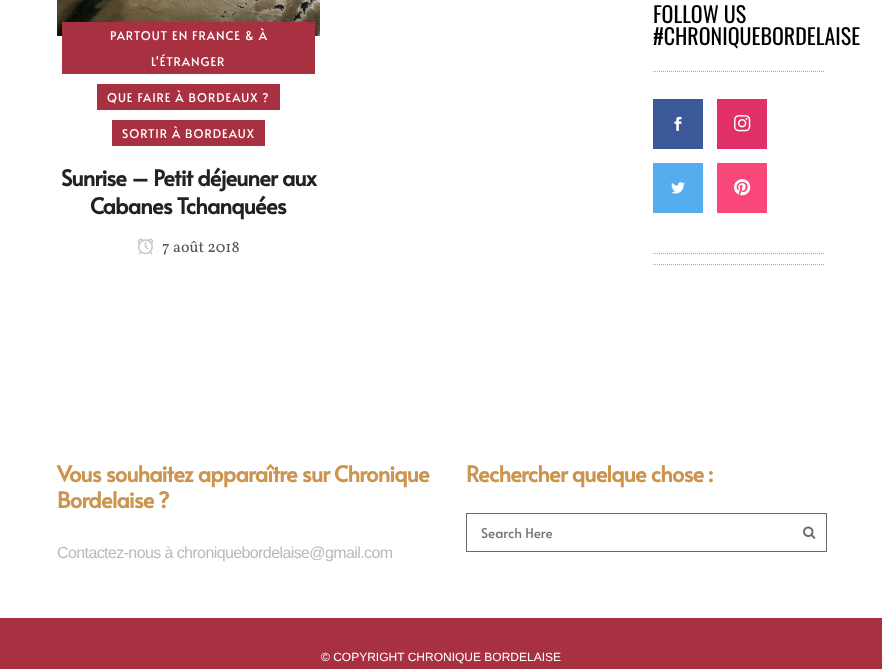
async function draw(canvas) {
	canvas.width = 882;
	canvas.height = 669;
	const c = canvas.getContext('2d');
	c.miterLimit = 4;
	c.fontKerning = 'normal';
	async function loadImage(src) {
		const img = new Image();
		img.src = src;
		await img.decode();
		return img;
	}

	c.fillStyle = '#fff';
	c.fillRect(0, 0, 882, 669);
	c.drawImage(await loadImage('img1.png'), 57, 0, 263, 36);
	c.fillStyle = '#a83141';
	c.fillRect(62, 22, 253, 52);
	c.letterSpacing = '1px';
	c.font = '12px Alata';
	c.fillStyle = '#fff';
	c.fillText('PARTOUT EN FRANCE & À', 110, 40);
	c.fillText('L\'ÉTRANGER', 151, 66);
	c.fillStyle = '#a83141';
	c.fillRect(97, 84, 183, 26);
	c.fillStyle = '#fff';
	c.fillText('QUE FAIRE À BORDEAUX ?', 107, 102);
	c.fillStyle = '#a83141';
	c.fillRect(112, 120, 153, 26);
	c.fillStyle = '#fff';
	c.fillText('SORTIR À BORDEAUX', 122, 138);
	c.letterSpacing = '-0.7px';
	c.font = 'bold 22px Alata';
	c.fillStyle = '#222';
	c.fillText('Sunrise – Petit déjeuner aux', 61, 186);
	c.fillText('Cabanes Tchanquées', 90, 214);
	c.drawImage(await loadImage('img2.png'), 137, 238, 17, 17);
	c.letterSpacing = '0px';
	c.font = '16px Vollkorn';
	c.fillStyle = '#545454';
	c.fillText('7 août 2018', 162, 252);
	c.font = '22px Oswald';
	c.fillStyle = '#000';
	c.fillText('FOLLOW US', 653, 23);
	c.fillText('#CHRONIQUEBORDELAISE', 653, 45);
	c.beginPath();
	c.moveTo(653, 71.5);
	c.lineTo(825, 71.5);
	c.strokeStyle = '#a9a9a9';
	c.setLineDash([1, 1]);
	c.stroke();
	c.fillStyle = '#3b5998';
	c.fillRect(653, 99, 50, 50);
	c.drawImage(await loadImage('img3.png'), 674, 116, 8, 15);
	c.fillStyle = '#e12f67';
	c.fillRect(717, 99, 50, 50);
	c.drawImage(await loadImage('img4.png'), 734, 115, 17, 17);
	c.fillStyle = '#55acee';
	c.fillRect(653, 163, 50, 50);
	c.drawImage(await loadImage('img5.png'), 671, 182, 14, 12);
	c.fillStyle = '#f94779';
	c.fillRect(717, 163, 50, 50);
	c.drawImage(await loadImage('img6.png'), 734, 179, 17, 17);
	c.beginPath();
	c.moveTo(653, 253.5);
	c.lineTo(825, 253.5);
	c.stroke();
	c.beginPath();
	c.moveTo(653, 264.5);
	c.lineTo(825, 264.5);
	c.stroke();
	c.letterSpacing = '-0.7px';
	c.font = 'bold 22px Alata';
	c.fillStyle = '#cc944c';
	c.fillText('Vous souhaitez apparaître sur Chronique', 57, 482);
	c.fillText('Bordelaise ?', 57, 508);
	c.letterSpacing = '-0.6px';
	c.font = '16px Liberation Sans';
	c.fillStyle = '#bababa';
	c.fillText('Contactez-nous à chroniquebordelaise@gmail.com', 57, 558);
	c.letterSpacing = '-0.7px';
	c.font = 'bold 22px Alata';
	c.fillStyle = '#cc944c';
	c.fillText('Rechercher quelque chose :', 466, 482);
	c.strokeStyle = '#6a6a6a';
	c.setLineDash([]);
	c.strokeRect(466.5, 513.5, 360, 38);
	c.letterSpacing = '0px';
	c.font = '13.5px Alata';
	c.fillStyle = '#757575';
	c.fillText('Search Here', 481, 538);
	c.drawImage(await loadImage('img7.png'), 803, 526, 13, 13);
	c.fillStyle = '#a83141';
	c.fillRect(0, 618, 882, 51);
	c.font = '12px Liberation Sans';
	c.fillStyle = '#fff';
	c.fillText('© COPYRIGHT CHRONIQUE BORDELAISE', 321, 661);
}

draw(document.querySelector('canvas'));
